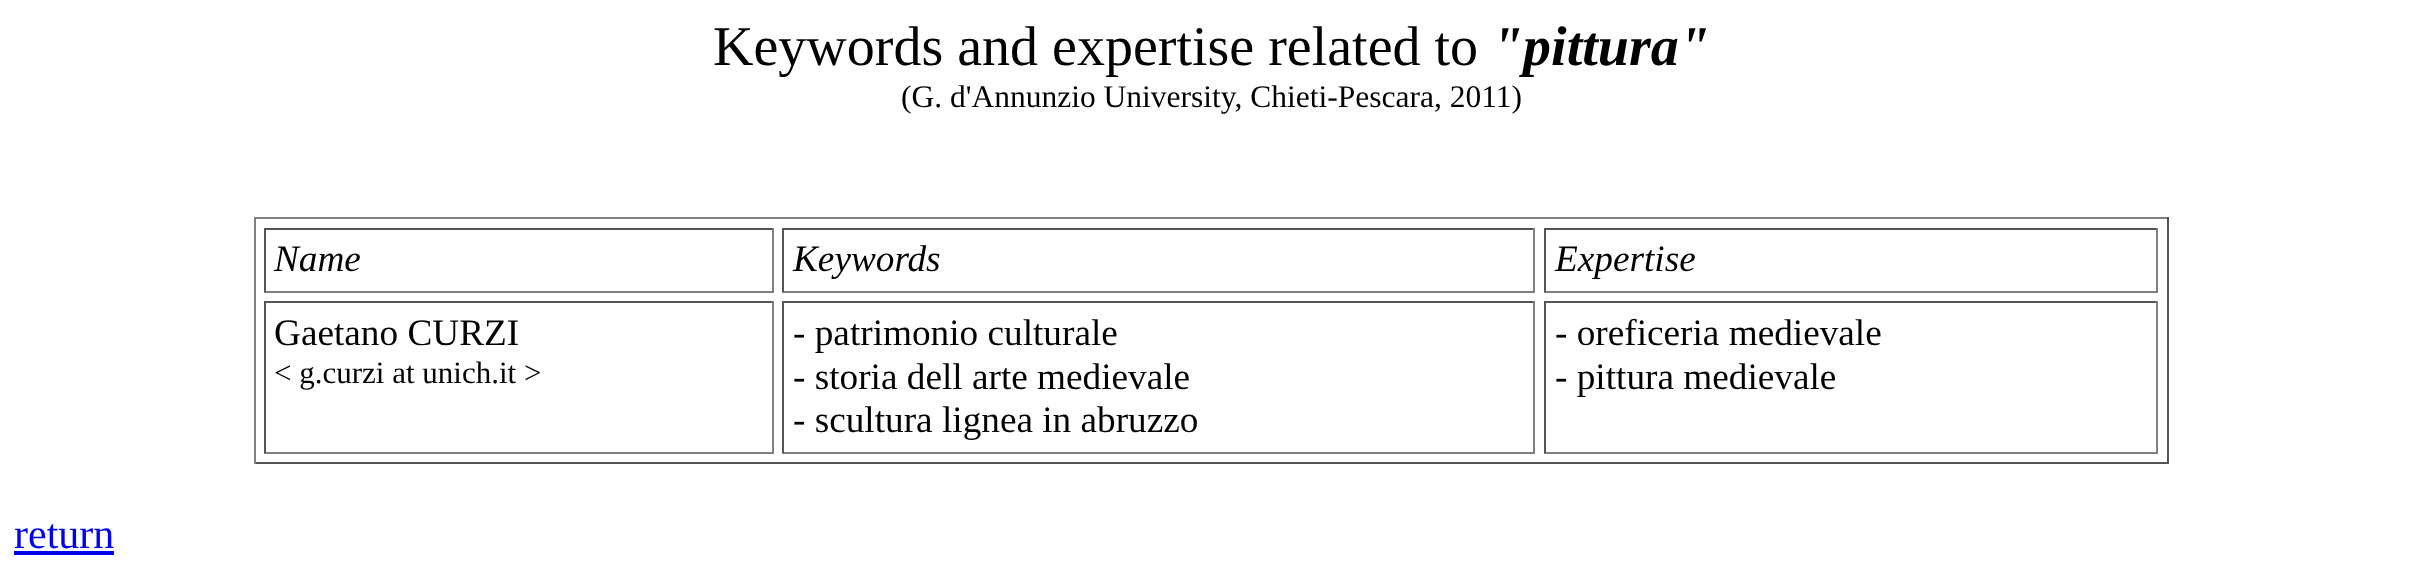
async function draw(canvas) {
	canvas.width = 2421;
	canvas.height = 571;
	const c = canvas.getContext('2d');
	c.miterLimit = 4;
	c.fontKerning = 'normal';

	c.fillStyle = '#fff';
	c.fillRect(0, 0, 2421, 571);
	c.font = '56px Liberation Serif';
	c.fillStyle = '#000';
	c.fillText('Keywords and expertise related to', 713, 65);
	c.font = 'italic bold 56px Liberation Serif';
	c.fillText('"pittura"', 1492, 65);
	c.font = '31.5px Liberation Serif';
	c.fillText('(G. d\'Annunzio University, Chieti-Pescara, 2011)', 901, 107);
	for (const [x, y, w, h, color] of [
		[254, 217, 1914, 2, '#808080'],
		[2167, 217, 2, 247, '#555'],
		[254, 462, 1914, 2, '#555'],
		[254, 217, 2, 247, '#808080'],
		[264, 228, 510, 2, '#555'],
		[772, 228, 2, 64, '#808080'],
		[264, 291, 510, 2, '#808080'],
		[264, 228, 2, 64, '#555'],
	]) {
		c.fillStyle = color;
		c.fillRect(x, y, w, h);
	}
	c.font = 'italic 37.25px Liberation Serif';
	c.fillStyle = '#000';
	c.fillText('Name', 274, 271);
	for (const [x, y, w, h, color] of [
		[782, 228, 753, 2, '#555'],
		[1533, 228, 2, 64, '#808080'],
		[782, 291, 753, 2, '#808080'],
		[782, 228, 2, 64, '#555'],
	]) {
		c.fillStyle = color;
		c.fillRect(x, y, w, h);
	}
	c.fillStyle = '#000';
	c.fillText('Keywords', 793, 271);
	for (const [x, y, w, h, color] of [
		[1544, 228, 614, 2, '#555'],
		[2156, 228, 2, 64, '#808080'],
		[1544, 291, 614, 2, '#808080'],
		[1544, 228, 2, 64, '#555'],
	]) {
		c.fillStyle = color;
		c.fillRect(x, y, w, h);
	}
	c.fillStyle = '#000';
	c.fillText('Expertise', 1555, 271);
	for (const [x, y, w, h, color] of [
		[264, 301, 510, 2, '#555'],
		[772, 301, 2, 152, '#808080'],
		[264, 452, 510, 2, '#808080'],
		[264, 301, 2, 152, '#555'],
	]) {
		c.fillStyle = color;
		c.fillRect(x, y, w, h);
	}
	c.font = '37.25px Liberation Serif';
	c.fillStyle = '#000';
	c.fillText('Gaetano CURZI', 274, 345);
	c.font = '31px Liberation Serif';
	c.fillText('< g.curzi at unich.it >', 274, 383);
	for (const [x, y, w, h, color] of [
		[782, 301, 753, 2, '#555'],
		[1533, 301, 2, 152, '#808080'],
		[782, 452, 753, 2, '#808080'],
		[782, 301, 2, 152, '#555'],
	]) {
		c.fillStyle = color;
		c.fillRect(x, y, w, h);
	}
	c.font = '37.25px Liberation Serif';
	c.fillStyle = '#000';
	for (const [text, x, y] of [
		['- patrimonio culturale', 793, 345],
		['- storia dell arte medievale', 793, 389],
		['- scultura lignea in abruzzo', 793, 432],
	]) {
		c.fillText(text, x, y);
	}
	for (const [x, y, w, h, color] of [
		[1544, 301, 614, 2, '#555'],
		[2156, 301, 2, 152, '#808080'],
		[1544, 452, 614, 2, '#808080'],
		[1544, 301, 2, 152, '#555'],
	]) {
		c.fillStyle = color;
		c.fillRect(x, y, w, h);
	}
	c.fillStyle = '#000';
	c.fillText('- oreficeria medievale', 1555, 345);
	c.fillText('- pittura medievale', 1555, 389);
	c.font = '42px Liberation Serif';
	c.fillStyle = '#00e';
	c.fillText('return', 14, 548);
	c.fillRect(14, 551, 100, 4);
}

draw(document.querySelector('canvas'));
